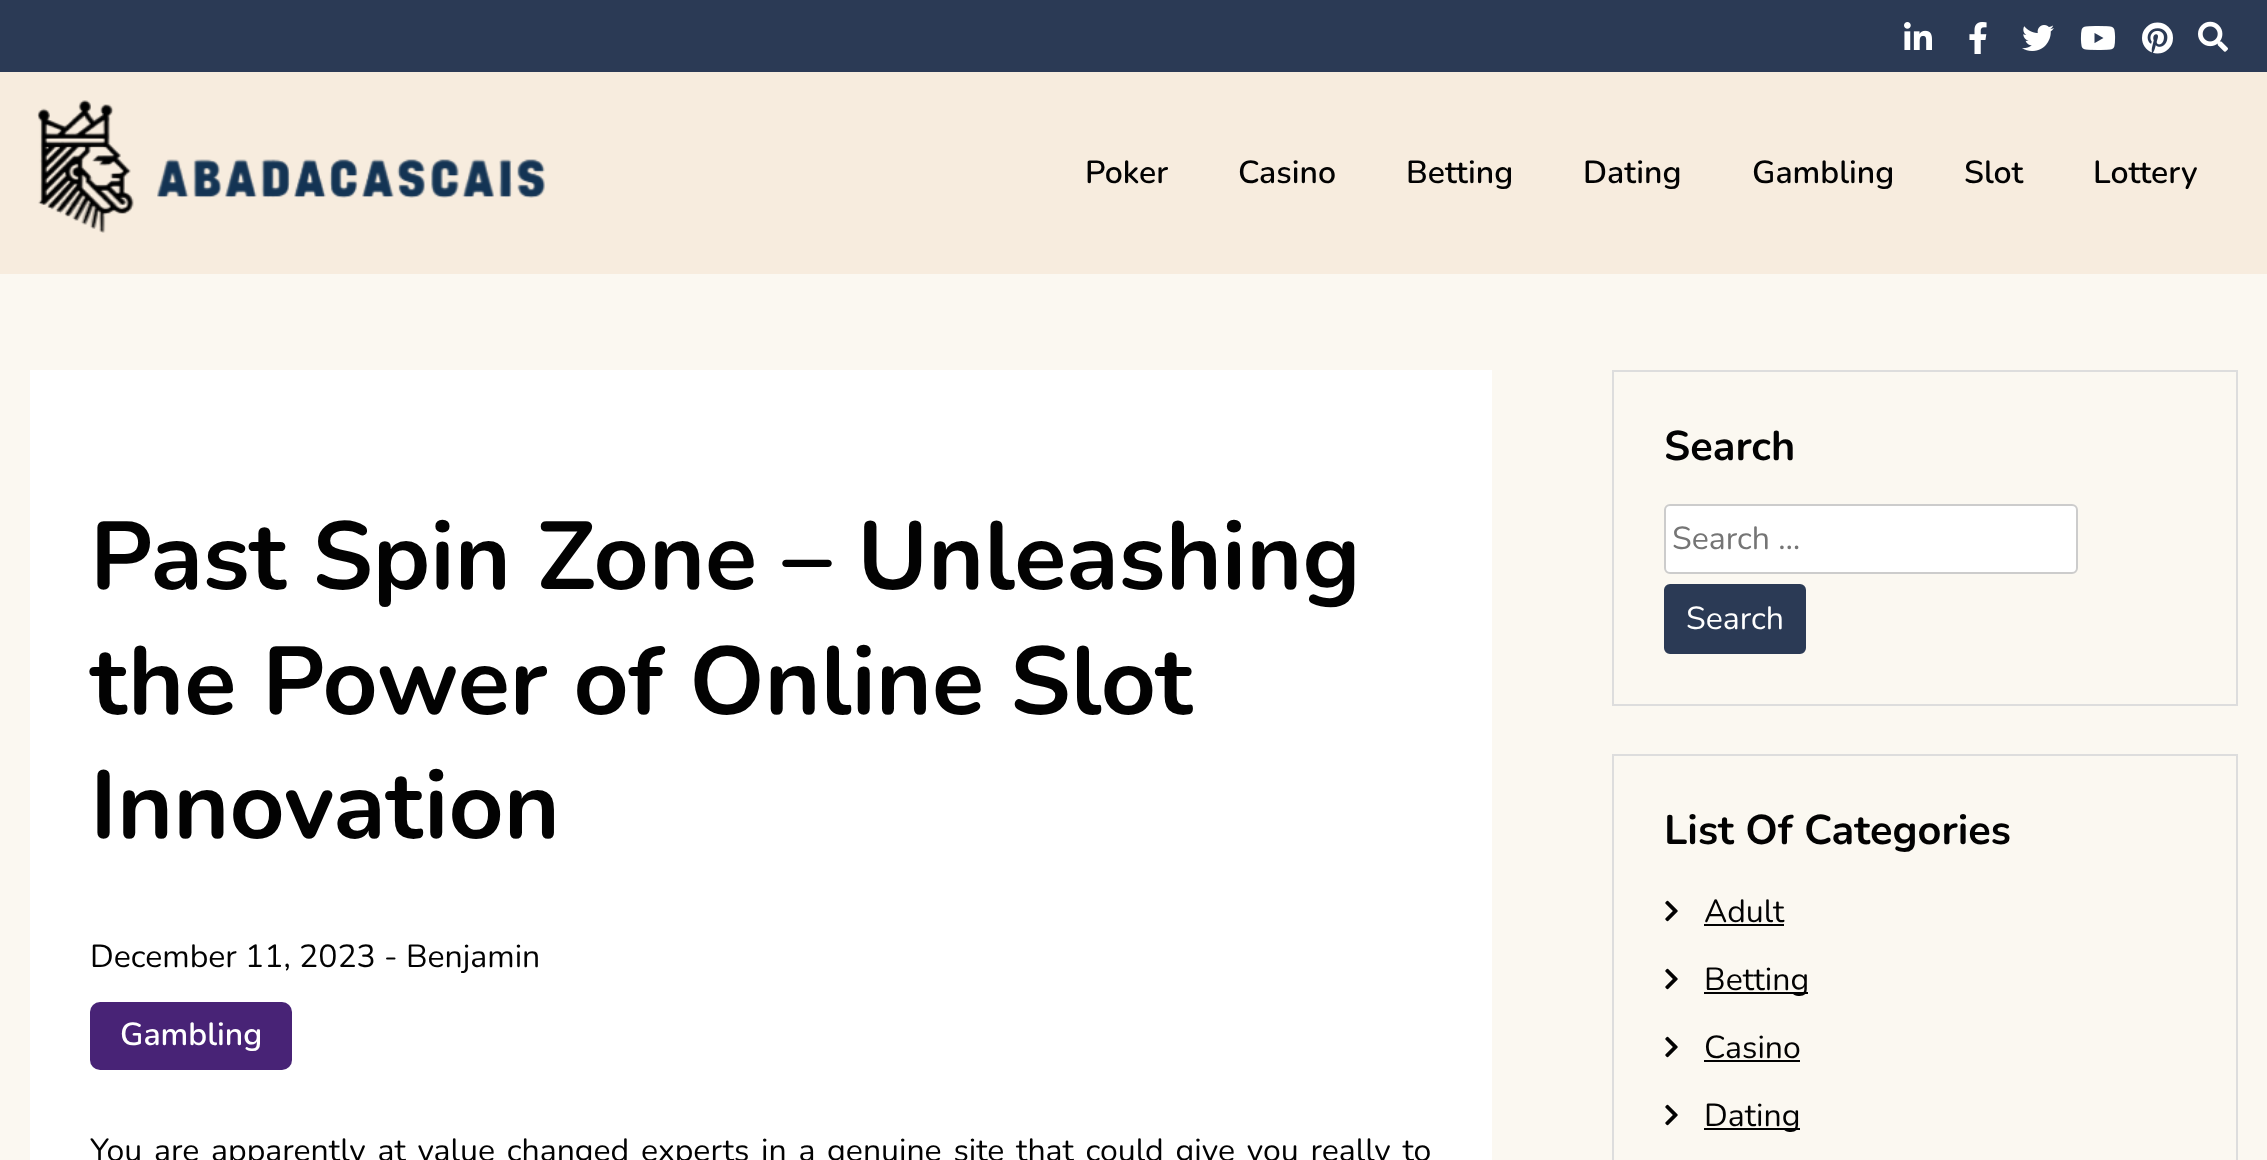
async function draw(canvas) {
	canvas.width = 2267;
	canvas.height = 1160;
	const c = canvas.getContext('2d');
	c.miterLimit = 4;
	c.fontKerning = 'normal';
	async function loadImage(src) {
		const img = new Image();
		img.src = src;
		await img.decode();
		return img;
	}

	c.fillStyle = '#fbf8f1';
	c.fillRect(0, 0, 2267, 1160);
	c.fillStyle = '#2b3a55';
	c.fillRect(0, 0, 2267, 72);
	c.drawImage(await loadImage('img1.png'), 1904, 22, 28, 28);
	c.drawImage(await loadImage('img2.png'), 1969, 22, 18, 32);
	c.drawImage(await loadImage('img3.png'), 2022, 25, 32, 26);
	c.drawImage(await loadImage('img4.png'), 2080, 26, 36, 24);
	c.drawImage(await loadImage('img5.png'), 2142, 22, 31, 32);
	c.drawImage(await loadImage('img6.png'), 2198, 21, 30, 31);
	c.fillStyle = '#f7ecde';
	c.fillRect(0, 72, 2267, 202);
	c.drawImage(await loadImage('img7.png'), 37, 100, 508, 133);
	c.font = '600 32px Nunito';
	c.fillStyle = '#020202';
	for (const [text, x, y] of [
		['Poker', 1085, 183],
		['Casino', 1238, 183],
		['Betting', 1406, 183],
		['Dating', 1583, 183],
		['Gambling', 1752, 183],
		['Slot', 1964, 183],
		['Lottery', 2093, 183],
	]) {
		c.fillText(text, x, y);
	}
	c.fillStyle = '#fff';
	c.fillRect(30, 370, 1462, 790);
	c.font = 'bold 96px Nunito';
	c.fillStyle = '#020202';
	for (const [text, x, y] of [
		['Past Spin Zone – Unleashing', 90, 589],
		['the Power of Online Slot', 90, 714],
		['Innovation', 90, 838],
	]) {
		c.fillText(text, x, y);
	}
	c.font = '32px Nunito';
	c.fillText('December 11, 2023 - Benjamin', 90, 967);
	c.fillStyle = '#482376';
	c.beginPath();
	c.roundRect(90, 1002, 202, 68, 10);
	c.fill();
	c.font = '600 32px Nunito';
	c.fillStyle = '#fff';
	c.fillText('Gambling', 120, 1045);
	c.wordSpacing = '3.5px';
	c.font = '32px Nunito';
	c.fillStyle = '#020202';
	c.fillText('You are apparently at value changed experts in a genuine site that could give you really to', 90, 1161);
	c.strokeStyle = '#ddd';
	c.lineWidth = 2;
	c.strokeRect(1613, 371, 624, 334);
	c.wordSpacing = '0px';
	c.font = 'bold 41.5px Nunito';
	c.fillText('Search', 1664, 460);
	c.fillStyle = '#fff';
	c.beginPath();
	c.roundRect(1665, 505, 412, 68, 5);
	c.fill();
	c.strokeStyle = '#ccc';
	c.stroke();
	c.font = '32px Nunito';
	c.fillStyle = '#757575';
	c.fillText('Search …', 1672, 549);
	c.fillStyle = '#2b3a55';
	c.beginPath();
	c.roundRect(1665, 585, 140, 68, 5);
	c.fill();
	c.strokeStyle = '#2b3a55';
	c.stroke();
	c.fillStyle = '#fff';
	c.fillText('Search', 1686, 629);
	c.strokeStyle = '#ddd';
	c.strokeRect(1613, 755, 624, 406);
	c.font = 'bold 41.5px Nunito';
	c.fillStyle = '#020202';
	c.fillText('List Of Categories', 1664, 844);
	c.drawImage(await loadImage('img8.png'), 1665, 900, 13, 22);
	c.font = '32px Nunito';
	c.fillText('Adult', 1704, 922);
	c.fillRect(1704, 924, 80, 2);
	c.drawImage(await loadImage('img8.png'), 1665, 968, 13, 22);
	c.fillRect(1704, 992, 104, 2);
	c.fillText('Betting', 1704, 990);
	c.drawImage(await loadImage('img8.png'), 1665, 1036, 13, 22);
	c.fillText('Casino', 1704, 1058);
	c.fillRect(1704, 1060, 96, 2);
	c.drawImage(await loadImage('img8.png'), 1665, 1104, 13, 22);
	c.fillRect(1704, 1128, 96, 2);
	c.fillText('Dating', 1704, 1126);
}

draw(document.querySelector('canvas'));
